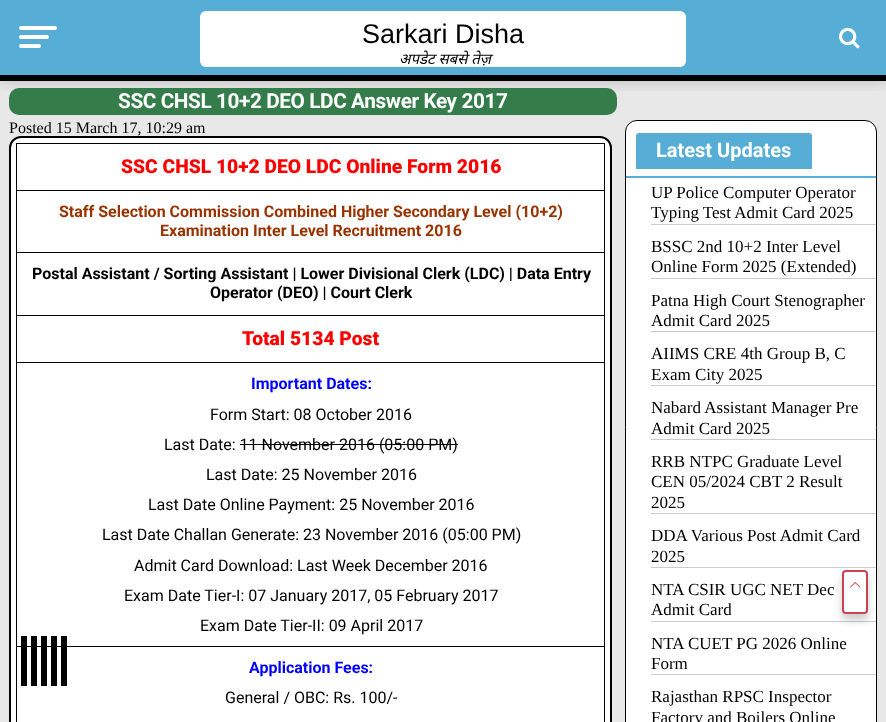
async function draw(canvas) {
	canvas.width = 886;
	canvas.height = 722;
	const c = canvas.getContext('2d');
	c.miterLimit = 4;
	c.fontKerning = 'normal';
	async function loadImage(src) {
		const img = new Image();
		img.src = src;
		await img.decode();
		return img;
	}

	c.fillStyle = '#e8e8e8';
	c.fillRect(0, 0, 886, 722);
	c.fillStyle = '#56add5';
	c.fillRect(0, 0, 886, 75);
	c.save();
	c.beginPath();
	c.rect(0, 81, 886, 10);
	c.clip();
	c.fillStyle = '#00000033';
	c.filter = 'blur(8px)';
	c.beginPath();
	c.rect(0, 0, 886, 81);
	c.fill();
	c.filter = 'none';
	c.restore();
	c.fillStyle = '#000';
	c.fillRect(0, 75, 886, 6);
	c.fillStyle = '#fff';
	c.beginPath();
	c.roundRect(19, 26, 38, 4, 2);
	c.fill();
	c.beginPath();
	c.roundRect(19, 35, 30, 4, 2);
	c.fill();
	c.beginPath();
	c.roundRect(19, 44, 22, 4, 2);
	c.fill();
	c.beginPath();
	c.roundRect(200, 11, 486, 56, 6);
	c.fill();
	c.font = '27px Liberation Sans';
	c.fillStyle = '#000';
	c.fillText('Sarkari Disha', 362, 43);
	c.font = 'italic 15px Noto Sans';
	c.fillText('अपडेट सबसे तेज़', 399, 64);
	c.drawImage(await loadImage('img1.png'), 839, 27, 21, 22);
	c.fillStyle = '#347c4a';
	c.beginPath();
	c.roundRect(9, 88, 608, 27, 10);
	c.fill();
	c.letterSpacing = '-0.4px';
	c.font = 'bold 20.75px Roboto';
	c.fillStyle = '#fff';
	c.fillText('SSC CHSL 10+2 DEO LDC Answer Key 2017', 118, 108);
	c.letterSpacing = '0px';
	c.font = '16px Liberation Serif';
	c.fillStyle = '#000';
	c.fillText('Posted 15 March 17, 10:29 am', 9, 133);
	c.fillStyle = '#fff';
	c.beginPath();
	c.roundRect(10, 137, 601, 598, 11);
	c.fill();
	c.strokeStyle = '#000';
	c.lineWidth = 2;
	c.stroke();
	for (const [x, y, w, h, color] of [
		[16, 143, 589, 1, '#000'],
		[604, 143, 1, 579, '#000'],
		[16, 143, 1, 579, '#000'],
	]) {
		c.fillStyle = color;
		c.fillRect(x, y, w, h);
	}
	c.font = '900 19.25px Roboto';
	c.fillStyle = '#f00';
	c.fillText('SSC CHSL 10+2 DEO LDC Online Form 2016', 121, 173);
	c.fillStyle = '#000';
	c.fillRect(16, 190, 589, 1);
	c.font = 'bold 16px Roboto';
	c.fillStyle = '#930';
	c.fillText('Staff Selection Commission Combined Higher Secondary Level (10+2)', 59, 217);
	c.fillText('Examination Inter Level Recruitment 2016', 160, 236);
	c.fillStyle = '#000';
	c.fillRect(16, 252, 589, 1);
	c.fillText('Postal Assistant / Sorting Assistant | Lower Divisional Clerk (LDC) | Data Entry', 32, 279);
	c.fillText('Operator (DEO) | Court Clerk', 210, 298);
	c.fillRect(16, 315, 589, 1);
	c.font = '900 19.25px Roboto';
	c.fillStyle = '#f00';
	c.fillText('Total 5134 Post', 242, 345);
	c.fillStyle = '#000';
	c.fillRect(16, 362, 589, 1);
	c.font = 'bold 16px Roboto';
	c.fillStyle = '#00f';
	c.fillText('Important Dates:', 251, 389);
	c.font = '16px Roboto';
	c.fillStyle = '#000';
	c.fillText('Form Start: 08 October 2016', 210, 420);
	c.fillText('Last Date: 11 November 2016 (05:00 PM)', 164, 450);
	c.fillRect(240, 444, 218, 1);
	for (const [text, x, y] of [
		['Last Date: 25 November 2016', 206, 480],
		['Last Date Online Payment: 25 November 2016', 148, 510],
		['Last Date Challan Generate: 23 November 2016 (05:00 PM)', 102, 540],
		['Admit Card Download: Last Week December 2016', 134, 571],
		['Exam Date Tier-I: 07 January 2017, 05 February 2017', 124, 601],
		['Exam Date Tier-II: 09 April 2017', 200, 631],
	]) {
		c.fillText(text, x, y);
	}
	c.fillRect(16, 646, 589, 1);
	c.font = 'bold 16px Roboto';
	c.fillStyle = '#00f';
	c.fillText('Application Fees:', 249, 673);
	c.font = '16px Roboto';
	c.fillStyle = '#000';
	c.fillText('General / OBC: Rs. 100/-', 225, 703);
	c.fillStyle = '#fff';
	c.beginPath();
	c.roundRect(625.5, 120.5, 251, 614, 11.5);
	c.fill();
	c.lineWidth = 1;
	c.stroke();
	c.fillStyle = '#56add5';
	c.fillRect(626, 176, 250, 2);
	c.beginPath();
	c.roundRect(636, 133, 176, 36, [3, 3, 0, 0]);
	c.fill();
	c.font = 'bold 20px Roboto';
	c.fillStyle = '#fff';
	c.fillText('Latest Updates', 656, 157);
	c.fillStyle = '#ccc';
	c.fillRect(651, 224, 225, 1);
	c.font = '17px Liberation Serif';
	c.fillStyle = '#000';
	c.fillText('UP Police Computer Operator', 651, 198);
	c.fillText('Typing Test Admit Card 2025', 651, 218);
	c.fillStyle = '#ccc';
	c.fillRect(651, 278, 225, 1);
	c.fillStyle = '#000';
	c.fillText('BSSC 2nd 10+2 Inter Level', 651, 252);
	c.fillText('Online Form 2025 (Extended)', 651, 272);
	c.fillStyle = '#ccc';
	c.fillRect(651, 331, 225, 1);
	c.fillStyle = '#000';
	c.fillText('Patna High Court Stenographer', 651, 306);
	c.fillText('Admit Card 2025', 651, 326);
	c.fillStyle = '#ccc';
	c.fillRect(651, 385, 225, 1);
	c.fillStyle = '#000';
	c.fillText('AIIMS CRE 4th Group B, C', 651, 359);
	c.fillText('Exam City 2025', 651, 380);
	c.fillStyle = '#ccc';
	c.fillRect(651, 439, 225, 1);
	c.fillStyle = '#000';
	c.fillText('Nabard Assistant Manager Pre', 651, 413);
	c.fillText('Admit Card 2025', 651, 434);
	c.fillStyle = '#ccc';
	c.fillRect(651, 513, 225, 1);
	c.fillStyle = '#000';
	for (const [text, x, y] of [
		['RRB NTPC Graduate Level', 651, 467],
		['CEN 05/2024 CBT 2 Result', 651, 487],
		['2025', 651, 508],
	]) {
		c.fillText(text, x, y);
	}
	c.fillStyle = '#ccc';
	c.fillRect(651, 567, 225, 1);
	c.fillStyle = '#000';
	c.fillText('DDA Various Post Admit Card', 651, 541);
	c.fillText('2025', 651, 562);
	c.fillStyle = '#ccc';
	c.fillRect(651, 621, 225, 1);
	c.fillStyle = '#000';
	c.fillText('NTA CSIR UGC NET Dec', 651, 595);
	c.fillText('Admit Card', 651, 615);
	c.fillStyle = '#ccc';
	c.fillRect(651, 674, 225, 1);
	c.fillStyle = '#000';
	for (const [text, x, y] of [
		['NTA CUET PG 2026 Online', 651, 649],
		['Form', 651, 669],
		['Rajasthan RPSC Inspector', 651, 702],
		['Factory and Boilers Online', 651, 723],
	]) {
		c.fillText(text, x, y);
	}
	c.fillStyle = '#00000033';
	c.filter = 'blur(4px)';
	c.beginPath();
	c.roundRect(842, 576, 26, 44, 4);
	c.fill();
	c.filter = 'none';
	c.fillStyle = '#fff';
	c.beginPath();
	c.roundRect(843, 571, 24, 42, 3);
	c.fill();
	c.strokeStyle = '#cb4154';
	c.lineWidth = 2;
	c.stroke();
	c.drawImage(await loadImage('img2.png'), 850, 582, 11, 6);
	for (const [x, y, w, h, color] of [
		[21, 636, 6, 50, '#000'],
		[31, 636, 6, 50, '#000'],
		[41, 636, 6, 50, '#000'],
		[51, 636, 6, 50, '#000'],
		[61, 636, 6, 50, '#000'],
	]) {
		c.fillStyle = color;
		c.fillRect(x, y, w, h);
	}
}

draw(document.querySelector('canvas'));
